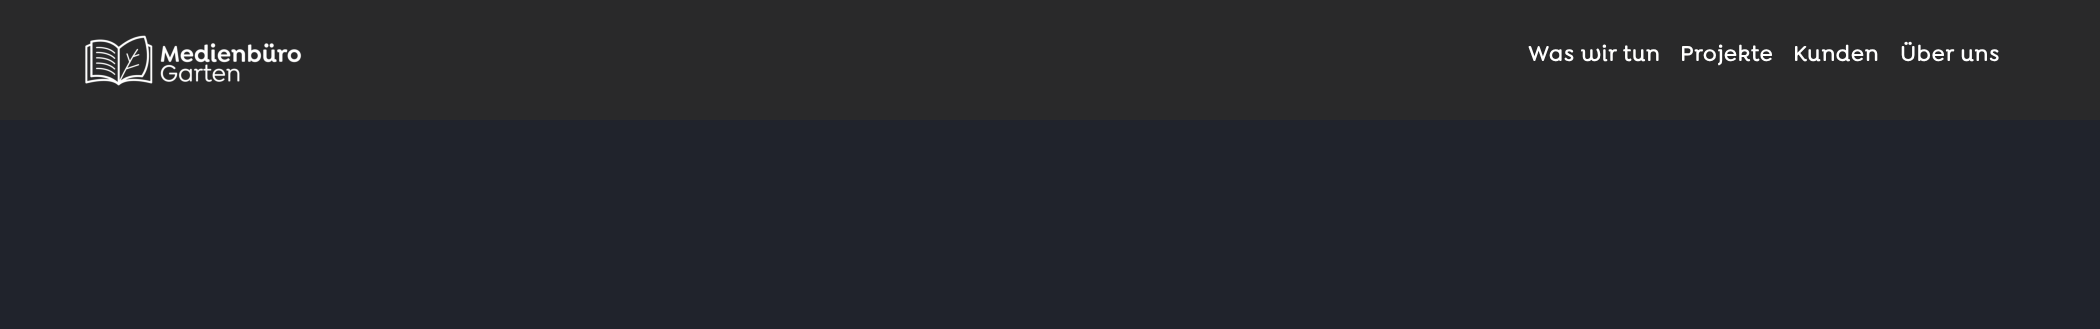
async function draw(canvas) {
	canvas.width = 2100;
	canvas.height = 329;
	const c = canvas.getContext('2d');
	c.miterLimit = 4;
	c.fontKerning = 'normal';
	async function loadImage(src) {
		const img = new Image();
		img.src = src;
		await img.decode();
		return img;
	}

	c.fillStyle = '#20232c';
	c.fillRect(0, 0, 2100, 329);
	c.fillStyle = '#29292a';
	c.fillRect(0, 0, 2100, 120);
	c.drawImage(await loadImage('img1.png'), 85, 35, 217, 51);
	c.letterSpacing = '1px';
	c.font = 'bold 22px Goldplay';
	c.fillStyle = '#fff';
	for (const [text, x, y] of [
		['Was wir tun', 1528, 61],
		['Projekte', 1680, 61],
		['Kunden', 1793, 61],
		['Über uns', 1900, 61],
	]) {
		c.fillText(text, x, y);
	}
}

draw(document.querySelector('canvas'));
